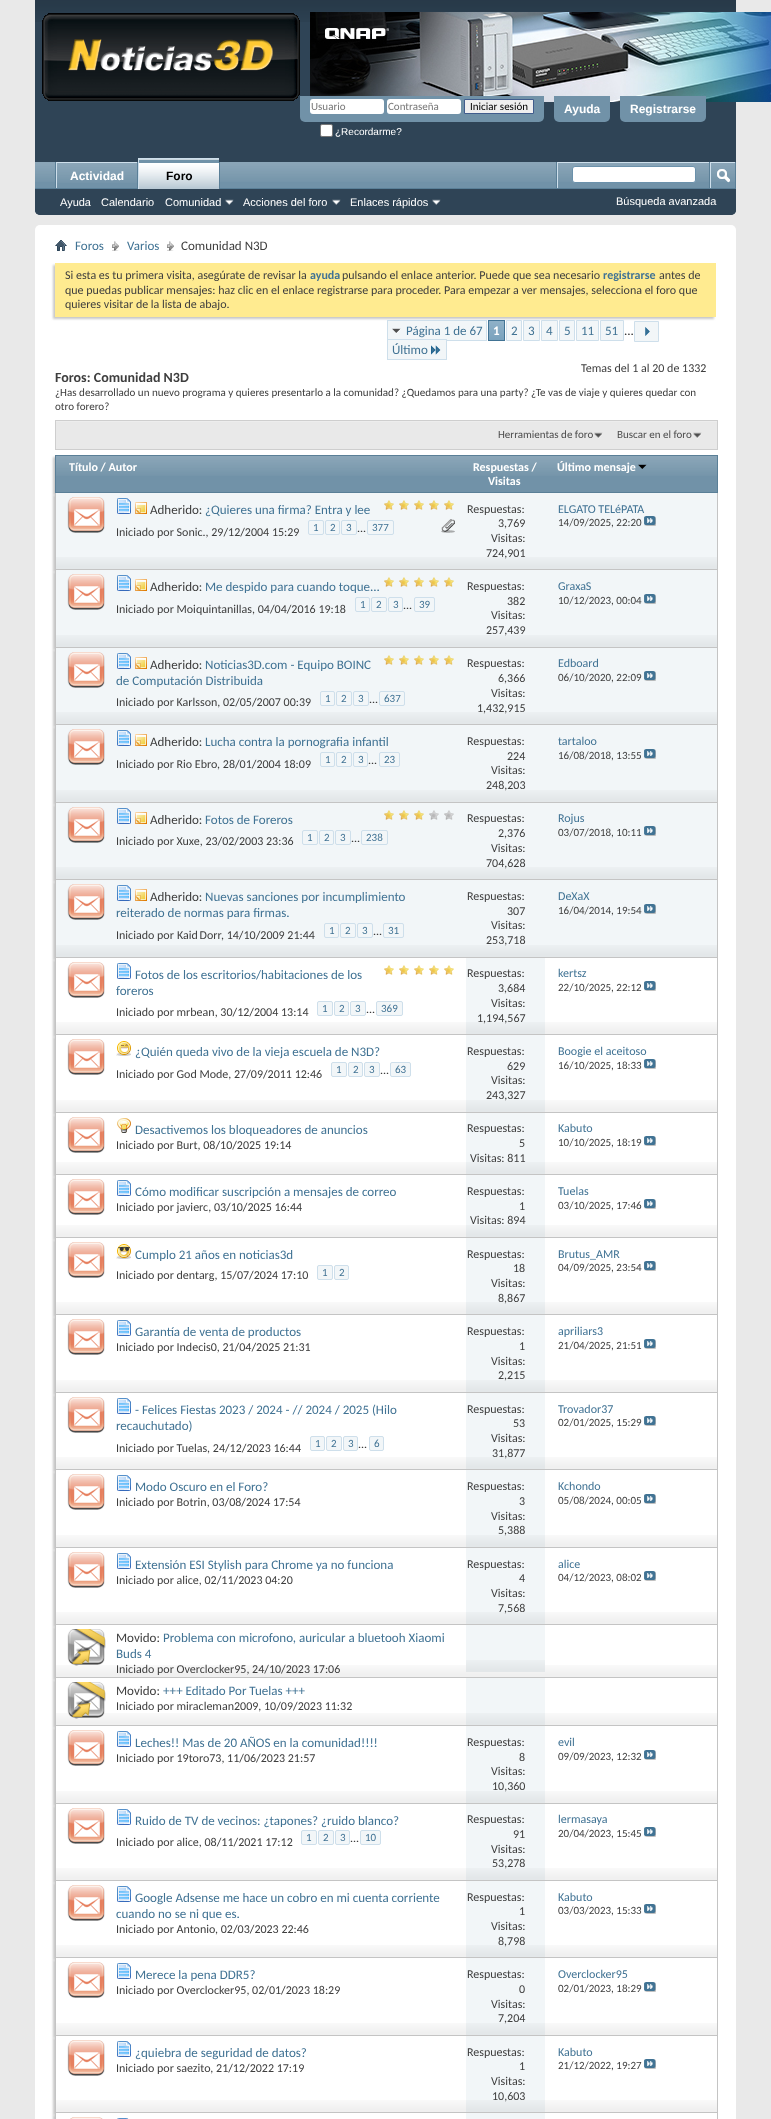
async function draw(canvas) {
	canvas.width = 771;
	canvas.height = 2119;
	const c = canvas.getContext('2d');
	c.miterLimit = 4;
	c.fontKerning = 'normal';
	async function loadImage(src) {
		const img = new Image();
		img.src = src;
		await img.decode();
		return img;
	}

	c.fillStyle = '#e9e9e9';
	c.fillRect(0, 0, 771, 2119);
	c.fillStyle = '#2f4456';
	c.beginPath();
	c.roundRect(35, 0, 701, 215, [0, 0, 5, 5]);
	c.fill();
	c.drawImage(await loadImage('img1.png'), 35, 0, 701, 22);
	c.drawImage(await loadImage('img2.png'), 42, 13, 258, 88);
	c.drawImage(await loadImage('img3.png'), 310, 12, 461, 90);
	c.fillStyle = '#7192a8';
	c.beginPath();
	c.roundRect(300, 96, 244, 26, [0, 0, 5, 5]);
	c.fill();
	c.fillStyle = '#fff';
	c.beginPath();
	c.roundRect(310, 99, 74, 15, 3);
	c.fill();
	c.font = '11px Carlito';
	c.fillStyle = '#777';
	c.fillText('Usuario', 311, 110);
	c.fillStyle = '#fff';
	c.beginPath();
	c.roundRect(387, 99, 74, 15, 3);
	c.fill();
	c.fillStyle = '#777';
	c.fillText('Contraseña', 388, 110);
	c.fillStyle = '#efefef';
	c.beginPath();
	c.rect(464.5, 99.5, 69, 14);
	c.fill();
	c.strokeStyle = '#415d8d';
	c.stroke();
	c.fillStyle = '#000';
	c.fillText('Iniciar sesión', 470, 110);
	c.fillStyle = '#fff';
	c.beginPath();
	c.roundRect(320.5, 124.5, 12, 12, 1.5);
	c.fill();
	c.strokeStyle = '#767676';
	c.stroke();
	c.font = '10px Liberation Sans';
	c.fillText('¿Recordarme?', 335, 135);
	c.fillStyle = '#7192a8';
	c.beginPath();
	c.roundRect(554, 96, 56, 26, [0, 0, 5, 5]);
	c.fill();
	c.font = 'bold 12px Liberation Sans';
	c.fillStyle = '#fff';
	c.fillText('Ayuda', 564, 113);
	c.fillStyle = '#7192a8';
	c.beginPath();
	c.roundRect(620, 96, 86, 26, [0, 0, 5, 5]);
	c.fill();
	c.fillStyle = '#fff';
	c.fillText('Registrarse', 630, 113);
	c.fillStyle = '#2f4456';
	c.beginPath();
	c.roundRect(35, 162, 701, 53, [0, 0, 5, 5]);
	c.fill();
	c.fillStyle = '#7192a8';
	c.fillRect(35, 162, 700, 26);
	c.drawImage(await loadImage('img4.png'), 35, 162, 700, 20);
	for (const [x, y, w, h, color] of [
		[137, 162, 1, 27, '#5a7f97'],
		[55, 162, 1, 27, '#5a7f97'],
		[57, 163, 80, 19, '#7192a8'],
	]) {
		c.fillStyle = color;
		c.fillRect(x, y, w, h);
	}
	c.drawImage(await loadImage('img5.png'), 57, 163, 80, 20);
	c.fillStyle = '#cedfeb';
	c.fillRect(56, 162, 81, 1);
	c.fillRect(56, 162, 1, 27);
	c.fillStyle = '#fff';
	c.fillText('Actividad', 70, 180);
	for (const [x, y, w, h, color] of [
		[219, 162, 1, 26, '#5a7f97'],
		[35, 188, 701, 1, '#5a7f97'],
		[139, 159, 80, 30, '#7192a8'],
	]) {
		c.fillStyle = color;
		c.fillRect(x, y, w, h);
	}
	c.drawImage(await loadImage('img6.png'), 139, 159, 80, 30);
	c.fillStyle = '#cedfeb';
	c.fillRect(138, 158, 81, 1);
	c.fillRect(138, 158, 1, 31);
	c.fillStyle = '#000';
	c.fillText('Foro', 166, 180);
	c.font = '11px Liberation Sans';
	c.fillStyle = '#fff';
	for (const [text, x, y] of [
		['Ayuda', 60, 206],
		['Calendario', 101, 206],
		['Comunidad', 165, 206],
	]) {
		c.fillText(text, x, y);
	}
	c.drawImage(await loadImage('img7.png'), 225, 199, 9, 6);
	c.fillText('Acciones del foro', 243, 206);
	c.drawImage(await loadImage('img7.png'), 332, 199, 9, 6);
	c.fillText('Enlaces rápidos', 350, 206);
	c.drawImage(await loadImage('img7.png'), 432, 199, 9, 6);
	for (const [x, y, w, h, color] of [
		[556, 162, 1, 26, '#5a7f97'],
		[557, 162, 152, 1, '#cedfeb'],
		[557, 162, 1, 26, '#cedfeb'],
	]) {
		c.fillStyle = color;
		c.fillRect(x, y, w, h);
	}
	c.fillStyle = '#fff';
	c.beginPath();
	c.roundRect(572.5, 166.5, 123, 16, 2.5);
	c.fill();
	c.strokeStyle = '#6b91ab';
	c.stroke();
	for (const [x, y, w, h, color] of [
		[735, 162, 1, 26, '#5a7f97'],
		[709, 162, 1, 26, '#5a7f97'],
		[710, 162, 25, 1, '#cedfeb'],
		[710, 162, 1, 26, '#cedfeb'],
	]) {
		c.fillStyle = color;
		c.fillRect(x, y, w, h);
	}
	c.drawImage(await loadImage('img8.png'), 717, 169, 13, 14);
	c.fillStyle = '#fff';
	c.fillText('Búsqueda avanzada', 616, 205);
	c.beginPath();
	c.roundRect(35, 225, 701, 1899, 5);
	c.fill();
	c.drawImage(await loadImage('img9.png'), 55, 240, 12, 11);
	c.drawImage(await loadImage('img10.png'), 112, 241, 7, 10);
	c.font = '13px Carlito';
	c.fillStyle = '#417394';
	c.fillText('Foros', 75, 250);
	c.drawImage(await loadImage('img10.png'), 167, 241, 7, 10);
	c.fillText('Varios', 127, 250);
	c.fillStyle = '#3e3e3e';
	c.fillText('Comunidad N3D', 181, 250);
	c.fillStyle = '#c8c8c8';
	c.filter = 'blur(1px)';
	c.beginPath();
	c.rect(53, 265, 661, 54);
	c.fill();
	c.filter = 'none';
	c.fillStyle = '#ffeb90';
	c.fillRect(55, 263, 661, 54);
	c.font = '12px Carlito';
	c.fillStyle = '#3e3e3e';
	c.fillText('Si esta es tu primera visita, asegúrate de revisar la', 65, 279);
	c.font = 'bold 12px Carlito';
	c.fillStyle = '#417394';
	c.fillText('ayuda', 310, 279);
	c.font = '12px Carlito';
	c.fillStyle = '#3e3e3e';
	c.fillText('pulsando el enlace anterior. Puede que sea necesario', 342, 279);
	c.font = 'bold 12px Carlito';
	c.fillStyle = '#417394';
	c.fillText('registrarse', 603, 279);
	c.font = '12px Carlito';
	c.fillStyle = '#3e3e3e';
	for (const [text, x, y] of [
		['antes de', 659, 279],
		['que puedas publicar mensajes: haz clic en el enlace registrarse para proceder. Para empezar a ver mensajes, selecciona el foro que', 65, 294],
		['quieres visitar de la lista de abajo.', 65, 308],
	]) {
		c.fillText(text, x, y);
	}
	c.fillStyle = '#f2f6f8';
	c.fillRect(388, 321, 98, 19);
	c.drawImage(await loadImage('img11.png'), 392, 328, 9, 6);
	c.strokeStyle = '#cedfeb';
	c.strokeRect(387.5, 320.5, 99, 20);
	c.font = '13px Carlito';
	c.fillStyle = '#417394';
	c.fillText('Página 1 de 67', 406, 335);
	c.fillStyle = '#759fbb';
	c.fillRect(489, 321, 15, 19);
	c.drawImage(await loadImage('img12.png'), 489, 321, 15, 19);
	c.strokeStyle = '#417394';
	c.strokeRect(488.5, 320.5, 16, 20);
	c.font = 'bold 13px Carlito';
	c.fillStyle = '#fff';
	c.fillText('1', 493, 335);
	c.fillStyle = '#f2f6f8';
	c.beginPath();
	c.rect(506.5, 320.5, 15, 20);
	c.fill();
	c.strokeStyle = '#cedfeb';
	c.stroke();
	c.font = '13px Carlito';
	c.fillStyle = '#417394';
	c.fillText('2', 511, 335);
	c.fillStyle = '#f2f6f8';
	c.beginPath();
	c.rect(523.5, 320.5, 16, 20);
	c.fill();
	c.stroke();
	c.fillStyle = '#417394';
	c.fillText('3', 528, 335);
	c.fillStyle = '#f2f6f8';
	c.beginPath();
	c.rect(541.5, 320.5, 16, 20);
	c.fill();
	c.stroke();
	c.fillStyle = '#417394';
	c.fillText('4', 546, 335);
	c.fillStyle = '#f2f6f8';
	c.beginPath();
	c.rect(559.5, 320.5, 15, 20);
	c.fill();
	c.stroke();
	c.fillStyle = '#417394';
	c.fillText('5', 564, 335);
	c.fillStyle = '#f2f6f8';
	c.beginPath();
	c.rect(576.5, 320.5, 22, 20);
	c.fill();
	c.stroke();
	c.fillStyle = '#417394';
	c.fillText('11', 581, 335);
	c.fillStyle = '#f2f6f8';
	c.beginPath();
	c.rect(600.5, 320.5, 23, 20);
	c.fill();
	c.stroke();
	c.fillStyle = '#417394';
	c.fillText('51', 605, 335);
	c.fillStyle = '#3e3e3e';
	c.fillText('...', 624, 335);
	c.fillStyle = '#f2f6f8';
	c.beginPath();
	c.rect(634.5, 321.5, 24, 20);
	c.fill();
	c.stroke();
	c.drawImage(await loadImage('img13.png'), 645, 327, 5, 9);
	c.fillRect(388, 340, 58, 19);
	c.fillStyle = '#417394';
	c.fillText('Último', 392, 354);
	for (const [x, y, w, h, color] of [
		[387, 339, 60, 1, '#cedfeb'],
		[387, 359, 40, 1, '#cedfeb'],
		[387, 339, 1, 21, '#cedfeb'],
		[446, 339, 1, 21, '#cedfeb'],
		[427, 359, 20, 1, '#cedfeb'],
	]) {
		c.fillStyle = color;
		c.fillRect(x, y, w, h);
	}
	c.drawImage(await loadImage('img14.png'), 431, 345, 10, 10);
	c.font = '12px Carlito';
	c.fillStyle = '#3e3e3e';
	c.fillText('Temas del 1 al 20 de 1332', 581, 372);
	c.font = 'bold 14px Carlito';
	c.fillText('Foros: Comunidad N3D', 55, 382);
	c.font = '11.05px Carlito';
	c.fillText('¿Has desarrollado un nuevo programa y quieres presentarlo a la comunidad? ¿Quedamos para una party? ¿Te vas de viaje y quieres quedar con', 55, 396);
	c.fillText('otro forero?', 55, 410);
	c.fillStyle = '#e9e9e9';
	c.fillRect(56, 422, 661, 27);
	c.fillStyle = '#ededed';
	c.fillRect(55, 421, 663, 1);
	c.strokeStyle = '#cecece';
	c.strokeRect(55.5, 420.5, 662, 29);
	c.drawImage(await loadImage('img15.png'), 594, 432, 9, 7);
	c.font = '11px Carlito';
	c.fillStyle = '#4e4e4e';
	c.fillText('Herramientas de foro', 498, 438);
	c.drawImage(await loadImage('img15.png'), 693, 432, 9, 7);
	c.fillText('Buscar en el foro', 617, 438);
	c.fillStyle = '#c8c8c8';
	c.filter = 'blur(1px)';
	c.beginPath();
	c.rect(53, 457, 663, 38);
	c.fill();
	c.filter = 'none';
	c.fillStyle = '#7192a8';
	c.fillRect(56, 456, 661, 36);
	c.drawImage(await loadImage('img16.png'), 56, 456, 661, 20);
	c.strokeStyle = '#5a7f97';
	c.strokeRect(55.5, 455.5, 662, 37);
	c.font = 'bold 12px Carlito';
	c.fillStyle = '#fff';
	for (const [text, x, y] of [
		['Título / Autor', 69, 471],
		['Respuestas /', 473, 471],
		['Visitas', 488, 485],
		['Último mensaje', 557, 471],
	]) {
		c.fillText(text, x, y);
	}
	c.drawImage(await loadImage('img17.png'), 638, 464, 9, 5);
	c.fillStyle = '#c8c8c8';
	c.filter = 'blur(1px)';
	c.beginPath();
	c.rect(53, 495, 661, 77);
	c.fill();
	c.filter = 'none';
	c.fillStyle = '#f2f6f8';
	c.fillRect(56, 493, 661, 76);
	c.drawImage(await loadImage('img18.png'), 56, 557, 661, 12);
	for (const [x, y, w, h, color] of [
		[717, 493, 1, 77, '#c4c4c4'],
		[55, 569, 663, 1, '#c4c4c4'],
		[55, 493, 1, 77, '#c4c4c4'],
	]) {
		c.fillStyle = color;
		c.fillRect(x, y, w, h);
	}
	c.drawImage(await loadImage('img19.png'), 67, 497, 38, 36);
	c.drawImage(await loadImage('img20.png'), 384, 500, 70, 10);
	c.drawImage(await loadImage('img21.png'), 117, 498, 14, 16);
	c.drawImage(await loadImage('img22.png'), 135, 502, 12, 12);
	c.font = '13px Carlito';
	c.fillStyle = '#3e3e3e';
	c.fillText('Adherido:', 150, 514);
	c.fillStyle = '#417394';
	c.fillText('¿Quieres una firma? Entra y lee', 205, 514);
	c.font = '12px Carlito';
	c.fillStyle = '#3e3e3e';
	c.fillText('Iniciado por Sonic., 29/12/2004 15:29', 116, 536);
	c.beginPath();
	c.roundRect(308.5, 520.5, 15, 14, 1.5);
	c.strokeStyle = '#cedfeb';
	c.stroke();
	c.font = '11px Carlito';
	c.fillStyle = '#417394';
	c.fillText('1', 313, 531);
	c.beginPath();
	c.roundRect(325.5, 520.5, 14, 14, 1.5);
	c.stroke();
	c.fillText('2', 330, 531);
	c.beginPath();
	c.roundRect(341.5, 520.5, 15, 14, 1.5);
	c.stroke();
	c.fillText('3', 346, 531);
	c.font = '12px Carlito';
	c.fillStyle = '#3e3e3e';
	c.fillText('...', 357, 532);
	c.beginPath();
	c.roundRect(367.5, 520.5, 26, 14, 1.5);
	c.stroke();
	c.font = '11px Carlito';
	c.fillStyle = '#417394';
	c.fillText('377', 372, 531);
	c.drawImage(await loadImage('img23.png'), 441, 519, 14, 14);
	c.fillStyle = '#f2f6f8';
	c.fillRect(466, 557, 79, 12);
	c.drawImage(await loadImage('img24.png'), 466, 557, 79, 12);
	c.font = '12px Carlito';
	c.fillStyle = '#3e3e3e';
	for (const [text, x, y] of [
		['Respuestas:', 467, 513],
		['3,769', 498, 527],
		['Visitas:', 491, 542],
		['724,901', 486, 557],
	]) {
		c.fillText(text, x, y);
	}
	c.fillStyle = '#417394';
	c.fillText('ELGATO TELéPATA', 558, 513);
	c.font = '11px Carlito';
	c.fillStyle = '#3e3e3e';
	c.fillText('14/09/2025, 22:20', 558, 526);
	c.drawImage(await loadImage('img25.png'), 644, 516, 12, 10);
	c.fillStyle = '#c8c8c8';
	c.filter = 'blur(1px)';
	c.beginPath();
	c.rect(53, 572, 661, 78);
	c.fill();
	c.filter = 'none';
	c.fillStyle = '#f2f6f8';
	c.fillRect(56, 570, 661, 77);
	c.drawImage(await loadImage('img18.png'), 56, 635, 661, 12);
	for (const [x, y, w, h, color] of [
		[717, 570, 1, 78, '#c4c4c4'],
		[55, 647, 663, 1, '#c4c4c4'],
		[55, 570, 1, 78, '#c4c4c4'],
	]) {
		c.fillStyle = color;
		c.fillRect(x, y, w, h);
	}
	c.drawImage(await loadImage('img19.png'), 67, 574, 38, 36);
	c.drawImage(await loadImage('img20.png'), 384, 577, 70, 10);
	c.drawImage(await loadImage('img21.png'), 117, 575, 14, 16);
	c.drawImage(await loadImage('img22.png'), 135, 579, 12, 12);
	c.font = '13px Carlito';
	c.fillStyle = '#3e3e3e';
	c.fillText('Adherido:', 150, 591);
	c.fillStyle = '#417394';
	c.fillText('Me despido para cuando toque...', 205, 591);
	c.font = '12px Carlito';
	c.fillStyle = '#3e3e3e';
	c.fillText('Iniciado por Moiquintanillas, 04/04/2016 19:18', 116, 613);
	c.beginPath();
	c.roundRect(355.5, 597.5, 14, 14, 1.5);
	c.stroke();
	c.font = '11px Carlito';
	c.fillStyle = '#417394';
	c.fillText('1', 360, 608);
	c.beginPath();
	c.roundRect(371.5, 597.5, 15, 14, 1.5);
	c.stroke();
	c.fillText('2', 376, 608);
	c.beginPath();
	c.roundRect(388.5, 597.5, 14, 14, 1.5);
	c.stroke();
	c.fillText('3', 393, 608);
	c.font = '12px Carlito';
	c.fillStyle = '#3e3e3e';
	c.fillText('...', 403, 609);
	c.beginPath();
	c.roundRect(414.5, 597.5, 20, 14, 1.5);
	c.stroke();
	c.font = '11px Carlito';
	c.fillStyle = '#417394';
	c.fillText('39', 419, 608);
	c.fillStyle = '#f2f6f8';
	c.fillRect(466, 635, 79, 12);
	c.drawImage(await loadImage('img24.png'), 466, 635, 79, 12);
	c.font = '12px Carlito';
	c.fillStyle = '#3e3e3e';
	for (const [text, x, y] of [
		['Respuestas:', 467, 590],
		['382', 507, 605],
		['Visitas:', 491, 619],
		['257,439', 486, 634],
	]) {
		c.fillText(text, x, y);
	}
	c.fillStyle = '#417394';
	c.fillText('GraxaS', 558, 590);
	c.font = '11px Carlito';
	c.fillStyle = '#3e3e3e';
	c.fillText('10/12/2023, 00:04', 558, 604);
	c.drawImage(await loadImage('img25.png'), 644, 594, 12, 10);
	c.fillStyle = '#c8c8c8';
	c.filter = 'blur(1px)';
	c.beginPath();
	c.rect(53, 650, 661, 77);
	c.fill();
	c.filter = 'none';
	c.fillStyle = '#f2f6f8';
	c.fillRect(56, 648, 661, 76);
	c.drawImage(await loadImage('img18.png'), 56, 712, 661, 12);
	for (const [x, y, w, h, color] of [
		[717, 648, 1, 77, '#c4c4c4'],
		[55, 724, 663, 1, '#c4c4c4'],
		[55, 648, 1, 77, '#c4c4c4'],
	]) {
		c.fillStyle = color;
		c.fillRect(x, y, w, h);
	}
	c.drawImage(await loadImage('img19.png'), 67, 652, 38, 36);
	c.drawImage(await loadImage('img20.png'), 384, 655, 70, 10);
	c.drawImage(await loadImage('img21.png'), 117, 653, 14, 16);
	c.drawImage(await loadImage('img22.png'), 135, 657, 12, 12);
	c.font = '13px Carlito';
	c.fillStyle = '#3e3e3e';
	c.fillText('Adherido:', 150, 669);
	c.fillStyle = '#417394';
	c.fillText('Noticias3D.com - Equipo BOINC', 205, 669);
	c.fillText('de Computación Distribuida', 116, 685);
	c.font = '12px Carlito';
	c.fillStyle = '#3e3e3e';
	c.fillText('Iniciado por Karlsson, 02/05/2007 00:39', 116, 706);
	c.beginPath();
	c.roundRect(320.5, 691.5, 14, 14, 1.5);
	c.stroke();
	c.font = '11px Carlito';
	c.fillStyle = '#417394';
	c.fillText('1', 325, 702);
	c.beginPath();
	c.roundRect(336.5, 691.5, 15, 14, 1.5);
	c.stroke();
	c.fillText('2', 341, 702);
	c.beginPath();
	c.roundRect(353.5, 691.5, 15, 14, 1.5);
	c.stroke();
	c.fillText('3', 358, 702);
	c.font = '12px Carlito';
	c.fillStyle = '#3e3e3e';
	c.fillText('...', 369, 703);
	c.beginPath();
	c.roundRect(379.5, 691.5, 25, 14, 1.5);
	c.stroke();
	c.font = '11px Carlito';
	c.fillStyle = '#417394';
	c.fillText('637', 384, 702);
	c.fillStyle = '#f2f6f8';
	c.fillRect(466, 712, 79, 12);
	c.drawImage(await loadImage('img24.png'), 466, 712, 79, 12);
	c.font = '12px Carlito';
	c.fillStyle = '#3e3e3e';
	for (const [text, x, y] of [
		['Respuestas:', 467, 667],
		['6,366', 498, 682],
		['Visitas:', 491, 697],
		['1,432,915', 477, 712],
	]) {
		c.fillText(text, x, y);
	}
	c.fillStyle = '#417394';
	c.fillText('Edboard', 558, 667);
	c.font = '11px Carlito';
	c.fillStyle = '#3e3e3e';
	c.fillText('06/10/2020, 22:09', 558, 681);
	c.drawImage(await loadImage('img25.png'), 644, 671, 12, 10);
	c.fillStyle = '#c8c8c8';
	c.filter = 'blur(1px)';
	c.beginPath();
	c.rect(53, 727, 661, 78);
	c.fill();
	c.filter = 'none';
	c.fillStyle = '#f2f6f8';
	c.fillRect(56, 725, 661, 77);
	c.drawImage(await loadImage('img18.png'), 56, 790, 661, 12);
	for (const [x, y, w, h, color] of [
		[717, 725, 1, 78, '#c4c4c4'],
		[55, 802, 663, 1, '#c4c4c4'],
		[55, 725, 1, 78, '#c4c4c4'],
	]) {
		c.fillStyle = color;
		c.fillRect(x, y, w, h);
	}
	c.drawImage(await loadImage('img19.png'), 67, 729, 38, 36);
	c.drawImage(await loadImage('img21.png'), 117, 730, 14, 16);
	c.drawImage(await loadImage('img22.png'), 135, 734, 12, 12);
	c.font = '13px Carlito';
	c.fillStyle = '#3e3e3e';
	c.fillText('Adherido:', 150, 746);
	c.fillStyle = '#417394';
	c.fillText('Lucha contra la pornografia infantil', 205, 746);
	c.font = '12px Carlito';
	c.fillStyle = '#3e3e3e';
	c.fillText('Iniciado por Rio Ebro, 28/01/2004 18:09', 116, 768);
	c.beginPath();
	c.roundRect(320.5, 752.5, 14, 14, 1.5);
	c.stroke();
	c.font = '11px Carlito';
	c.fillStyle = '#417394';
	c.fillText('1', 325, 763);
	c.beginPath();
	c.roundRect(336.5, 752.5, 15, 14, 1.5);
	c.stroke();
	c.fillText('2', 341, 763);
	c.beginPath();
	c.roundRect(353.5, 752.5, 14, 14, 1.5);
	c.stroke();
	c.fillText('3', 358, 763);
	c.font = '12px Carlito';
	c.fillStyle = '#3e3e3e';
	c.fillText('...', 368, 764);
	c.beginPath();
	c.roundRect(379.5, 752.5, 20, 14, 1.5);
	c.stroke();
	c.font = '11px Carlito';
	c.fillStyle = '#417394';
	c.fillText('23', 384, 763);
	c.fillStyle = '#f2f6f8';
	c.fillRect(466, 790, 79, 12);
	c.drawImage(await loadImage('img24.png'), 466, 790, 79, 12);
	c.font = '12px Carlito';
	c.fillStyle = '#3e3e3e';
	for (const [text, x, y] of [
		['Respuestas:', 467, 745],
		['224', 507, 760],
		['Visitas:', 491, 774],
		['248,203', 486, 789],
	]) {
		c.fillText(text, x, y);
	}
	c.fillStyle = '#417394';
	c.fillText('tartaloo', 558, 745);
	c.font = '11px Carlito';
	c.fillStyle = '#3e3e3e';
	c.fillText('16/08/2018, 13:55', 558, 759);
	c.drawImage(await loadImage('img25.png'), 644, 749, 12, 10);
	c.fillStyle = '#c8c8c8';
	c.filter = 'blur(1px)';
	c.beginPath();
	c.rect(53, 805, 661, 77);
	c.fill();
	c.filter = 'none';
	c.fillStyle = '#f2f6f8';
	c.fillRect(56, 803, 661, 76);
	c.drawImage(await loadImage('img18.png'), 56, 867, 661, 12);
	for (const [x, y, w, h, color] of [
		[717, 803, 1, 77, '#c4c4c4'],
		[55, 879, 663, 1, '#c4c4c4'],
		[55, 803, 1, 77, '#c4c4c4'],
	]) {
		c.fillStyle = color;
		c.fillRect(x, y, w, h);
	}
	c.drawImage(await loadImage('img19.png'), 67, 807, 38, 36);
	c.drawImage(await loadImage('img26.png'), 384, 810, 70, 10);
	c.drawImage(await loadImage('img21.png'), 117, 808, 14, 16);
	c.drawImage(await loadImage('img22.png'), 135, 812, 12, 12);
	c.font = '13px Carlito';
	c.fillStyle = '#3e3e3e';
	c.fillText('Adherido:', 150, 824);
	c.fillStyle = '#417394';
	c.fillText('Fotos de Foreros', 205, 824);
	c.font = '12px Carlito';
	c.fillStyle = '#3e3e3e';
	c.fillText('Iniciado por Xuxe, 23/02/2003 23:36', 116, 845);
	c.beginPath();
	c.roundRect(302.5, 830.5, 15, 14, 1.5);
	c.stroke();
	c.font = '11px Carlito';
	c.fillStyle = '#417394';
	c.fillText('1', 307, 841);
	c.beginPath();
	c.roundRect(319.5, 830.5, 14, 14, 1.5);
	c.stroke();
	c.fillText('2', 324, 841);
	c.beginPath();
	c.roundRect(335.5, 830.5, 15, 14, 1.5);
	c.stroke();
	c.fillText('3', 340, 841);
	c.font = '12px Carlito';
	c.fillStyle = '#3e3e3e';
	c.fillText('...', 351, 842);
	c.beginPath();
	c.roundRect(361.5, 830.5, 26, 14, 1.5);
	c.stroke();
	c.font = '11px Carlito';
	c.fillStyle = '#417394';
	c.fillText('238', 366, 841);
	c.fillStyle = '#f2f6f8';
	c.fillRect(466, 867, 79, 12);
	c.drawImage(await loadImage('img24.png'), 466, 867, 79, 12);
	c.font = '12px Carlito';
	c.fillStyle = '#3e3e3e';
	for (const [text, x, y] of [
		['Respuestas:', 467, 822],
		['2,376', 498, 837],
		['Visitas:', 491, 852],
		['704,628', 486, 867],
	]) {
		c.fillText(text, x, y);
	}
	c.fillStyle = '#417394';
	c.fillText('Rojus', 558, 822);
	c.font = '11px Carlito';
	c.fillStyle = '#3e3e3e';
	c.fillText('03/07/2018, 10:11', 558, 836);
	c.drawImage(await loadImage('img25.png'), 644, 826, 12, 10);
	c.fillStyle = '#c8c8c8';
	c.filter = 'blur(1px)';
	c.beginPath();
	c.rect(53, 882, 661, 78);
	c.fill();
	c.filter = 'none';
	c.fillStyle = '#f2f6f8';
	c.fillRect(56, 880, 661, 77);
	c.drawImage(await loadImage('img18.png'), 56, 945, 661, 12);
	for (const [x, y, w, h, color] of [
		[717, 880, 1, 78, '#c4c4c4'],
		[55, 957, 663, 1, '#c4c4c4'],
		[55, 880, 1, 78, '#c4c4c4'],
	]) {
		c.fillStyle = color;
		c.fillRect(x, y, w, h);
	}
	c.drawImage(await loadImage('img19.png'), 67, 884, 38, 36);
	c.drawImage(await loadImage('img21.png'), 117, 885, 14, 16);
	c.drawImage(await loadImage('img22.png'), 135, 889, 12, 12);
	c.font = '13px Carlito';
	c.fillStyle = '#3e3e3e';
	c.fillText('Adherido:', 150, 901);
	c.fillStyle = '#417394';
	c.fillText('Nuevas sanciones por incumplimiento', 205, 901);
	c.fillText('reiterado de normas para firmas.', 116, 917);
	c.font = '12px Carlito';
	c.fillStyle = '#3e3e3e';
	c.fillText('Iniciado por', 116, 939);
	c.wordSpacing = '-1px';
	c.fillText('Kaid Dorr', 177, 939);
	c.wordSpacing = '0px';
	c.fillText(', 14/10/2009 21:44', 221, 939);
	c.beginPath();
	c.roundRect(324.5, 923.5, 14, 14, 1.5);
	c.stroke();
	c.font = '11px Carlito';
	c.fillStyle = '#417394';
	c.fillText('1', 329, 934);
	c.beginPath();
	c.roundRect(340.5, 923.5, 15, 14, 1.5);
	c.stroke();
	c.fillText('2', 345, 934);
	c.beginPath();
	c.roundRect(357.5, 923.5, 15, 14, 1.5);
	c.stroke();
	c.fillText('3', 362, 934);
	c.font = '12px Carlito';
	c.fillStyle = '#3e3e3e';
	c.fillText('...', 373, 935);
	c.beginPath();
	c.roundRect(383.5, 923.5, 20, 14, 1.5);
	c.stroke();
	c.font = '11px Carlito';
	c.fillStyle = '#417394';
	c.fillText('31', 388, 934);
	c.fillStyle = '#f2f6f8';
	c.fillRect(466, 945, 79, 12);
	c.drawImage(await loadImage('img24.png'), 466, 945, 79, 12);
	c.font = '12px Carlito';
	c.fillStyle = '#3e3e3e';
	for (const [text, x, y] of [
		['Respuestas:', 467, 900],
		['307', 507, 915],
		['Visitas:', 491, 929],
		['253,718', 486, 944],
	]) {
		c.fillText(text, x, y);
	}
	c.fillStyle = '#417394';
	c.fillText('DeXaX', 558, 900);
	c.font = '11px Carlito';
	c.fillStyle = '#3e3e3e';
	c.fillText('16/04/2014, 19:54', 558, 914);
	c.drawImage(await loadImage('img25.png'), 644, 904, 12, 10);
	c.fillStyle = '#c8c8c8';
	c.filter = 'blur(1px)';
	c.beginPath();
	c.rect(53, 960, 661, 77);
	c.fill();
	c.filter = 'none';
	c.fillStyle = '#fff';
	c.fillRect(56, 958, 660, 76);
	c.drawImage(await loadImage('img27.png'), 56, 1022, 661, 12);
	for (const [x, y, w, h, color] of [
		[717, 958, 1, 77, '#c4c4c4'],
		[55, 1034, 663, 1, '#c4c4c4'],
		[55, 958, 1, 77, '#c4c4c4'],
	]) {
		c.fillStyle = color;
		c.fillRect(x, y, w, h);
	}
	c.drawImage(await loadImage('img28.png'), 67, 962, 38, 36);
	c.drawImage(await loadImage('img29.png'), 384, 965, 70, 10);
	c.drawImage(await loadImage('img30.png'), 117, 963, 14, 16);
	c.font = '13px Carlito';
	c.fillStyle = '#417394';
	c.fillText('Fotos de los escritorios/habitaciones de los', 135, 979);
	c.fillText('foreros', 116, 995);
	c.font = '12px Carlito';
	c.fillStyle = '#3e3e3e';
	c.fillText('Iniciado por mrbean, 30/12/2004 13:14', 116, 1016);
	c.fillStyle = '#f2f6f8';
	c.beginPath();
	c.roundRect(317.5, 1001.5, 15, 14, 1.5);
	c.fill();
	c.stroke();
	c.font = '11px Carlito';
	c.fillStyle = '#417394';
	c.fillText('1', 322, 1012);
	c.fillStyle = '#f2f6f8';
	c.beginPath();
	c.roundRect(334.5, 1001.5, 14, 14, 1.5);
	c.fill();
	c.stroke();
	c.fillStyle = '#417394';
	c.fillText('2', 339, 1012);
	c.fillStyle = '#f2f6f8';
	c.beginPath();
	c.roundRect(350.5, 1001.5, 15, 14, 1.5);
	c.fill();
	c.stroke();
	c.fillStyle = '#417394';
	c.fillText('3', 355, 1012);
	c.font = '12px Carlito';
	c.fillStyle = '#3e3e3e';
	c.fillText('...', 366, 1013);
	c.fillStyle = '#f2f6f8';
	c.beginPath();
	c.roundRect(376.5, 1001.5, 26, 14, 1.5);
	c.fill();
	c.stroke();
	c.font = '11px Carlito';
	c.fillStyle = '#417394';
	c.fillText('369', 381, 1012);
	c.fillStyle = '#f2f6f8';
	c.fillRect(466, 958, 79, 76);
	c.drawImage(await loadImage('img24.png'), 466, 1022, 79, 12);
	c.font = '12px Carlito';
	c.fillStyle = '#3e3e3e';
	for (const [text, x, y] of [
		['Respuestas:', 467, 977],
		['3,684', 498, 992],
		['Visitas:', 491, 1007],
		['1,194,567', 477, 1022],
	]) {
		c.fillText(text, x, y);
	}
	c.fillStyle = '#417394';
	c.fillText('kertsz', 558, 977);
	c.font = '11px Carlito';
	c.fillStyle = '#3e3e3e';
	c.fillText('22/10/2025, 22:12', 558, 991);
	c.drawImage(await loadImage('img31.png'), 644, 981, 12, 10);
	c.fillStyle = '#c8c8c8';
	c.filter = 'blur(1px)';
	c.beginPath();
	c.rect(53, 1037, 661, 78);
	c.fill();
	c.filter = 'none';
	c.fillStyle = '#fff';
	c.fillRect(56, 1035, 660, 77);
	c.drawImage(await loadImage('img27.png'), 56, 1100, 661, 12);
	for (const [x, y, w, h, color] of [
		[717, 1035, 1, 78, '#c4c4c4'],
		[55, 1112, 663, 1, '#c4c4c4'],
		[55, 1035, 1, 78, '#c4c4c4'],
	]) {
		c.fillStyle = color;
		c.fillRect(x, y, w, h);
	}
	c.drawImage(await loadImage('img28.png'), 67, 1039, 38, 36);
	c.drawImage(await loadImage('img32.png'), 116, 1041, 15, 15);
	c.font = '13px Carlito';
	c.fillStyle = '#417394';
	c.fillText('¿Quién queda vivo de la vieja escuela de N3D?', 135, 1056);
	c.font = '12px Carlito';
	c.fillStyle = '#3e3e3e';
	c.fillText('Iniciado por God Mode, 27/09/2011 12:46', 116, 1078);
	c.fillStyle = '#f2f6f8';
	c.beginPath();
	c.roundRect(331.5, 1062.5, 15, 14, 1.5);
	c.fill();
	c.stroke();
	c.font = '11px Carlito';
	c.fillStyle = '#417394';
	c.fillText('1', 336, 1073);
	c.fillStyle = '#f2f6f8';
	c.beginPath();
	c.roundRect(348.5, 1062.5, 14, 14, 1.5);
	c.fill();
	c.stroke();
	c.fillStyle = '#417394';
	c.fillText('2', 353, 1073);
	c.fillStyle = '#f2f6f8';
	c.beginPath();
	c.roundRect(364.5, 1062.5, 15, 14, 1.5);
	c.fill();
	c.stroke();
	c.fillStyle = '#417394';
	c.fillText('3', 369, 1073);
	c.font = '12px Carlito';
	c.fillStyle = '#3e3e3e';
	c.fillText('...', 380, 1074);
	c.fillStyle = '#f2f6f8';
	c.beginPath();
	c.roundRect(390.5, 1062.5, 20, 14, 1.5);
	c.fill();
	c.stroke();
	c.font = '11px Carlito';
	c.fillStyle = '#417394';
	c.fillText('63', 395, 1073);
	c.fillStyle = '#f2f6f8';
	c.fillRect(466, 1035, 79, 77);
	c.drawImage(await loadImage('img24.png'), 466, 1100, 79, 12);
	c.font = '12px Carlito';
	c.fillStyle = '#3e3e3e';
	for (const [text, x, y] of [
		['Respuestas:', 467, 1055],
		['629', 507, 1070],
		['Visitas:', 491, 1084],
		['243,327', 486, 1099],
	]) {
		c.fillText(text, x, y);
	}
	c.fillStyle = '#417394';
	c.fillText('Boogie el aceitoso', 558, 1055);
	c.font = '11px Carlito';
	c.fillStyle = '#3e3e3e';
	c.fillText('16/10/2025, 18:33', 558, 1069);
	c.drawImage(await loadImage('img31.png'), 644, 1059, 12, 10);
	c.fillStyle = '#c8c8c8';
	c.filter = 'blur(1px)';
	c.beginPath();
	c.rect(53, 1115, 661, 62);
	c.fill();
	c.filter = 'none';
	c.fillStyle = '#fff';
	c.fillRect(56, 1113, 660, 61);
	c.drawImage(await loadImage('img27.png'), 56, 1162, 661, 12);
	for (const [x, y, w, h, color] of [
		[717, 1113, 1, 62, '#c4c4c4'],
		[55, 1174, 663, 1, '#c4c4c4'],
		[55, 1113, 1, 62, '#c4c4c4'],
	]) {
		c.fillStyle = color;
		c.fillRect(x, y, w, h);
	}
	c.drawImage(await loadImage('img28.png'), 67, 1117, 38, 36);
	c.drawImage(await loadImage('img33.png'), 117, 1118, 14, 15);
	c.font = '13px Carlito';
	c.fillStyle = '#417394';
	c.fillText('Desactivemos los bloqueadores de anuncios', 135, 1134);
	c.font = '12px Carlito';
	c.fillStyle = '#3e3e3e';
	c.fillText('Iniciado por Burt, 08/10/2025 19:14', 116, 1149);
	c.fillStyle = '#f2f6f8';
	c.fillRect(466, 1113, 79, 61);
	c.drawImage(await loadImage('img24.png'), 466, 1162, 79, 12);
	c.fillStyle = '#3e3e3e';
	for (const [text, x, y] of [
		['Respuestas:', 467, 1132],
		['5', 519, 1147],
		['Visitas: 811', 470, 1162],
	]) {
		c.fillText(text, x, y);
	}
	c.fillStyle = '#417394';
	c.fillText('Kabuto', 558, 1132);
	c.font = '11px Carlito';
	c.fillStyle = '#3e3e3e';
	c.fillText('10/10/2025, 18:19', 558, 1146);
	c.drawImage(await loadImage('img31.png'), 644, 1136, 12, 10);
	c.fillStyle = '#c8c8c8';
	c.filter = 'blur(1px)';
	c.beginPath();
	c.rect(53, 1177, 661, 63);
	c.fill();
	c.filter = 'none';
	c.fillStyle = '#fff';
	c.fillRect(56, 1175, 660, 62);
	c.drawImage(await loadImage('img27.png'), 56, 1225, 661, 12);
	for (const [x, y, w, h, color] of [
		[717, 1175, 1, 63, '#c4c4c4'],
		[55, 1237, 663, 1, '#c4c4c4'],
		[55, 1175, 1, 63, '#c4c4c4'],
	]) {
		c.fillStyle = color;
		c.fillRect(x, y, w, h);
	}
	c.drawImage(await loadImage('img28.png'), 67, 1179, 38, 36);
	c.drawImage(await loadImage('img30.png'), 117, 1180, 14, 16);
	c.font = '13px Carlito';
	c.fillStyle = '#417394';
	c.fillText('Cómo modificar suscripción a mensajes de correo', 135, 1196);
	c.font = '12px Carlito';
	c.fillStyle = '#3e3e3e';
	c.fillText('Iniciado por javierc, 03/10/2025 16:44', 116, 1211);
	c.fillStyle = '#f2f6f8';
	c.fillRect(466, 1175, 79, 62);
	c.drawImage(await loadImage('img24.png'), 466, 1225, 79, 12);
	c.fillStyle = '#3e3e3e';
	for (const [text, x, y] of [
		['Respuestas:', 467, 1195],
		['1', 519, 1210],
		['Visitas: 894', 470, 1224],
	]) {
		c.fillText(text, x, y);
	}
	c.fillStyle = '#417394';
	c.fillText('Tuelas', 558, 1195);
	c.font = '11px Carlito';
	c.fillStyle = '#3e3e3e';
	c.fillText('03/10/2025, 17:46', 558, 1209);
	c.drawImage(await loadImage('img31.png'), 644, 1199, 12, 10);
	c.fillStyle = '#c8c8c8';
	c.filter = 'blur(1px)';
	c.beginPath();
	c.rect(53, 1240, 661, 77);
	c.fill();
	c.filter = 'none';
	c.fillStyle = '#fff';
	c.fillRect(56, 1238, 660, 76);
	c.drawImage(await loadImage('img27.png'), 56, 1302, 661, 12);
	for (const [x, y, w, h, color] of [
		[717, 1238, 1, 77, '#c4c4c4'],
		[55, 1314, 663, 1, '#c4c4c4'],
		[55, 1238, 1, 77, '#c4c4c4'],
	]) {
		c.fillStyle = color;
		c.fillRect(x, y, w, h);
	}
	c.drawImage(await loadImage('img28.png'), 67, 1242, 38, 36);
	c.drawImage(await loadImage('img34.png'), 116, 1244, 15, 15);
	c.font = '13px Carlito';
	c.fillStyle = '#417394';
	c.fillText('Cumplo 21 años en noticias3d', 135, 1259);
	c.font = '12px Carlito';
	c.fillStyle = '#3e3e3e';
	c.fillText('Iniciado por dentarg, 15/07/2024 17:10', 116, 1279);
	c.fillStyle = '#f2f6f8';
	c.beginPath();
	c.roundRect(317.5, 1265.5, 15, 14, 1.5);
	c.fill();
	c.stroke();
	c.font = '11px Carlito';
	c.fillStyle = '#417394';
	c.fillText('1', 322, 1276);
	c.fillStyle = '#f2f6f8';
	c.beginPath();
	c.roundRect(334.5, 1265.5, 14, 14, 1.5);
	c.fill();
	c.stroke();
	c.fillStyle = '#417394';
	c.fillText('2', 339, 1276);
	c.fillStyle = '#f2f6f8';
	c.fillRect(466, 1238, 79, 76);
	c.drawImage(await loadImage('img24.png'), 466, 1302, 79, 12);
	c.font = '12px Carlito';
	c.fillStyle = '#3e3e3e';
	for (const [text, x, y] of [
		['Respuestas:', 467, 1258],
		['18', 513, 1272],
		['Visitas:', 491, 1287],
		['8,867', 498, 1302],
	]) {
		c.fillText(text, x, y);
	}
	c.fillStyle = '#417394';
	c.fillText('Brutus_AMR', 558, 1258);
	c.font = '11px Carlito';
	c.fillStyle = '#3e3e3e';
	c.fillText('04/09/2025, 23:54', 558, 1271);
	c.drawImage(await loadImage('img31.png'), 644, 1261, 12, 10);
	c.fillStyle = '#c8c8c8';
	c.filter = 'blur(1px)';
	c.beginPath();
	c.rect(53, 1317, 661, 78);
	c.fill();
	c.filter = 'none';
	c.fillStyle = '#fff';
	c.fillRect(56, 1315, 660, 77);
	c.drawImage(await loadImage('img27.png'), 56, 1380, 661, 12);
	for (const [x, y, w, h, color] of [
		[717, 1315, 1, 78, '#c4c4c4'],
		[55, 1392, 663, 1, '#c4c4c4'],
		[55, 1315, 1, 78, '#c4c4c4'],
	]) {
		c.fillStyle = color;
		c.fillRect(x, y, w, h);
	}
	c.drawImage(await loadImage('img28.png'), 67, 1319, 38, 36);
	c.drawImage(await loadImage('img30.png'), 117, 1320, 14, 16);
	c.font = '13px Carlito';
	c.fillStyle = '#417394';
	c.fillText('Garantía de venta de productos', 135, 1336);
	c.font = '12px Carlito';
	c.fillStyle = '#3e3e3e';
	c.fillText('Iniciado por Indecis0, 21/04/2025 21:31', 116, 1351);
	c.fillStyle = '#f2f6f8';
	c.fillRect(466, 1315, 79, 77);
	c.drawImage(await loadImage('img24.png'), 466, 1380, 79, 12);
	c.fillStyle = '#3e3e3e';
	for (const [text, x, y] of [
		['Respuestas:', 467, 1335],
		['1', 519, 1350],
		['Visitas:', 491, 1365],
		['2,215', 498, 1379],
	]) {
		c.fillText(text, x, y);
	}
	c.fillStyle = '#417394';
	c.fillText('apriliars3', 558, 1335);
	c.font = '11px Carlito';
	c.fillStyle = '#3e3e3e';
	c.fillText('21/04/2025, 21:51', 558, 1349);
	c.drawImage(await loadImage('img31.png'), 644, 1339, 12, 10);
	c.fillStyle = '#c8c8c8';
	c.filter = 'blur(1px)';
	c.beginPath();
	c.rect(53, 1395, 661, 77);
	c.fill();
	c.filter = 'none';
	c.fillStyle = '#fff';
	c.fillRect(56, 1393, 660, 76);
	c.drawImage(await loadImage('img27.png'), 56, 1457, 661, 12);
	for (const [x, y, w, h, color] of [
		[717, 1393, 1, 77, '#c4c4c4'],
		[55, 1469, 663, 1, '#c4c4c4'],
		[55, 1393, 1, 77, '#c4c4c4'],
	]) {
		c.fillStyle = color;
		c.fillRect(x, y, w, h);
	}
	c.drawImage(await loadImage('img28.png'), 67, 1397, 38, 36);
	c.drawImage(await loadImage('img30.png'), 117, 1398, 14, 16);
	c.font = '13px Carlito';
	c.fillStyle = '#417394';
	c.fillText('- Felices Fiestas 2023 / 2024 - // 2024 / 2025 (Hilo', 135, 1414);
	c.fillText('recauchutado)', 116, 1430);
	c.font = '12px Carlito';
	c.fillStyle = '#3e3e3e';
	c.fillText('Iniciado por Tuelas, 24/12/2023 16:44', 116, 1452);
	c.fillStyle = '#f2f6f8';
	c.beginPath();
	c.roundRect(310.5, 1436.5, 14, 14, 1.5);
	c.fill();
	c.stroke();
	c.font = '11px Carlito';
	c.fillStyle = '#417394';
	c.fillText('1', 315, 1447);
	c.fillStyle = '#f2f6f8';
	c.beginPath();
	c.roundRect(326.5, 1436.5, 15, 14, 1.5);
	c.fill();
	c.stroke();
	c.fillStyle = '#417394';
	c.fillText('2', 331, 1447);
	c.fillStyle = '#f2f6f8';
	c.beginPath();
	c.roundRect(343.5, 1436.5, 14, 14, 1.5);
	c.fill();
	c.stroke();
	c.fillStyle = '#417394';
	c.fillText('3', 348, 1447);
	c.font = '12px Carlito';
	c.fillStyle = '#3e3e3e';
	c.fillText('...', 358, 1448);
	c.fillStyle = '#f2f6f8';
	c.beginPath();
	c.roundRect(369.5, 1436.5, 14, 14, 1.5);
	c.fill();
	c.stroke();
	c.font = '11px Carlito';
	c.fillStyle = '#417394';
	c.fillText('6', 374, 1447);
	c.fillStyle = '#f2f6f8';
	c.fillRect(466, 1393, 79, 76);
	c.drawImage(await loadImage('img24.png'), 466, 1457, 79, 12);
	c.font = '12px Carlito';
	c.fillStyle = '#3e3e3e';
	for (const [text, x, y] of [
		['Respuestas:', 467, 1413],
		['53', 513, 1427],
		['Visitas:', 491, 1442],
		['31,877', 492, 1457],
	]) {
		c.fillText(text, x, y);
	}
	c.fillStyle = '#417394';
	c.fillText('Trovador37', 558, 1413);
	c.font = '11px Carlito';
	c.fillStyle = '#3e3e3e';
	c.fillText('02/01/2025, 15:29', 558, 1426);
	c.drawImage(await loadImage('img31.png'), 644, 1416, 12, 10);
	c.fillStyle = '#c8c8c8';
	c.filter = 'blur(1px)';
	c.beginPath();
	c.rect(53, 1472, 661, 78);
	c.fill();
	c.filter = 'none';
	c.fillStyle = '#fff';
	c.fillRect(56, 1470, 660, 77);
	c.drawImage(await loadImage('img27.png'), 56, 1535, 661, 12);
	for (const [x, y, w, h, color] of [
		[717, 1470, 1, 78, '#c4c4c4'],
		[55, 1547, 663, 1, '#c4c4c4'],
		[55, 1470, 1, 78, '#c4c4c4'],
	]) {
		c.fillStyle = color;
		c.fillRect(x, y, w, h);
	}
	c.drawImage(await loadImage('img28.png'), 67, 1474, 38, 36);
	c.drawImage(await loadImage('img30.png'), 117, 1475, 14, 16);
	c.font = '13px Carlito';
	c.fillStyle = '#417394';
	c.fillText('Modo Oscuro en el Foro?', 135, 1491);
	c.font = '12px Carlito';
	c.fillStyle = '#3e3e3e';
	c.fillText('Iniciado por Botrin, 03/08/2024 17:54', 116, 1506);
	c.fillStyle = '#f2f6f8';
	c.fillRect(466, 1470, 79, 77);
	c.drawImage(await loadImage('img24.png'), 466, 1535, 79, 12);
	c.fillStyle = '#3e3e3e';
	for (const [text, x, y] of [
		['Respuestas:', 467, 1490],
		['3', 519, 1505],
		['Visitas:', 491, 1520],
		['5,388', 498, 1534],
	]) {
		c.fillText(text, x, y);
	}
	c.fillStyle = '#417394';
	c.fillText('Kchondo', 558, 1490);
	c.font = '11px Carlito';
	c.fillStyle = '#3e3e3e';
	c.fillText('05/08/2024, 00:05', 558, 1504);
	c.drawImage(await loadImage('img31.png'), 644, 1494, 12, 10);
	c.fillStyle = '#c8c8c8';
	c.filter = 'blur(1px)';
	c.beginPath();
	c.rect(53, 1550, 661, 77);
	c.fill();
	c.filter = 'none';
	c.fillStyle = '#fff';
	c.fillRect(56, 1548, 660, 76);
	c.drawImage(await loadImage('img27.png'), 56, 1612, 661, 12);
	for (const [x, y, w, h, color] of [
		[717, 1548, 1, 77, '#c4c4c4'],
		[55, 1624, 663, 1, '#c4c4c4'],
		[55, 1548, 1, 77, '#c4c4c4'],
	]) {
		c.fillStyle = color;
		c.fillRect(x, y, w, h);
	}
	c.drawImage(await loadImage('img28.png'), 67, 1552, 38, 36);
	c.drawImage(await loadImage('img30.png'), 117, 1553, 14, 16);
	c.font = '13px Carlito';
	c.fillStyle = '#417394';
	c.fillText('Extensión ESI Stylish para Chrome ya no funciona', 135, 1569);
	c.font = '12px Carlito';
	c.fillStyle = '#3e3e3e';
	c.fillText('Iniciado por alice, 02/11/2023 04:20', 116, 1584);
	c.fillStyle = '#f2f6f8';
	c.fillRect(466, 1548, 79, 76);
	c.drawImage(await loadImage('img24.png'), 466, 1612, 79, 12);
	c.fillStyle = '#3e3e3e';
	for (const [text, x, y] of [
		['Respuestas:', 467, 1568],
		['4', 519, 1582],
		['Visitas:', 491, 1597],
		['7,568', 498, 1612],
	]) {
		c.fillText(text, x, y);
	}
	c.fillStyle = '#417394';
	c.fillText('alice', 558, 1568);
	c.font = '11px Carlito';
	c.fillStyle = '#3e3e3e';
	c.fillText('04/12/2023, 08:02', 558, 1581);
	c.drawImage(await loadImage('img31.png'), 644, 1571, 12, 10);
	c.fillStyle = '#c8c8c8';
	c.filter = 'blur(1px)';
	c.beginPath();
	c.rect(53, 1627, 661, 53);
	c.fill();
	c.filter = 'none';
	c.fillStyle = '#fff';
	c.fillRect(56, 1625, 660, 52);
	c.drawImage(await loadImage('img27.png'), 56, 1665, 661, 12);
	for (const [x, y, w, h, color] of [
		[717, 1625, 1, 53, '#c4c4c4'],
		[55, 1677, 663, 1, '#c4c4c4'],
		[55, 1625, 1, 53, '#c4c4c4'],
	]) {
		c.fillStyle = color;
		c.fillRect(x, y, w, h);
	}
	c.drawImage(await loadImage('img35.png'), 67, 1629, 39, 37);
	c.font = '13px Carlito';
	c.fillStyle = '#3e3e3e';
	c.fillText('Movido:', 116, 1642);
	c.fillStyle = '#417394';
	c.fillText('Problema con microfono, auricular a bluetooh Xiaomi', 163, 1642);
	c.fillText('Buds 4', 116, 1658);
	c.font = '12px Carlito';
	c.fillStyle = '#3e3e3e';
	c.fillText('Iniciado por Overclocker95, 24/10/2023 17:06', 116, 1673);
	c.fillStyle = '#f2f6f8';
	c.fillRect(466, 1625, 79, 47);
	c.drawImage(await loadImage('img24.png'), 466, 1660, 79, 12);
	c.fillStyle = '#c8c8c8';
	c.filter = 'blur(1px)';
	c.beginPath();
	c.rect(53, 1680, 661, 48);
	c.fill();
	c.filter = 'none';
	c.fillStyle = '#fff';
	c.fillRect(56, 1678, 660, 47);
	c.drawImage(await loadImage('img27.png'), 56, 1713, 661, 12);
	for (const [x, y, w, h, color] of [
		[717, 1678, 1, 48, '#c4c4c4'],
		[55, 1725, 663, 1, '#c4c4c4'],
		[55, 1678, 1, 48, '#c4c4c4'],
	]) {
		c.fillStyle = color;
		c.fillRect(x, y, w, h);
	}
	c.drawImage(await loadImage('img36.png'), 67, 1682, 39, 37);
	c.font = '13px Carlito';
	c.fillStyle = '#3e3e3e';
	c.fillText('Movido:', 116, 1695);
	c.fillStyle = '#417394';
	c.fillText('+++ Editado Por Tuelas +++', 163, 1695);
	c.font = '12px Carlito';
	c.fillStyle = '#3e3e3e';
	c.fillText('Iniciado por miracleman2009, 10/09/2023 11:32', 116, 1710);
	c.fillStyle = '#f2f6f8';
	c.fillRect(466, 1678, 79, 47);
	c.drawImage(await loadImage('img24.png'), 466, 1713, 79, 12);
	c.fillStyle = '#c8c8c8';
	c.filter = 'blur(1px)';
	c.beginPath();
	c.rect(53, 1728, 661, 78);
	c.fill();
	c.filter = 'none';
	c.fillStyle = '#fff';
	c.fillRect(56, 1726, 660, 77);
	c.drawImage(await loadImage('img27.png'), 56, 1791, 661, 12);
	for (const [x, y, w, h, color] of [
		[717, 1726, 1, 78, '#c4c4c4'],
		[55, 1803, 663, 1, '#c4c4c4'],
		[55, 1726, 1, 78, '#c4c4c4'],
	]) {
		c.fillStyle = color;
		c.fillRect(x, y, w, h);
	}
	c.drawImage(await loadImage('img28.png'), 67, 1730, 38, 36);
	c.drawImage(await loadImage('img30.png'), 117, 1731, 14, 16);
	c.font = '13px Carlito';
	c.fillStyle = '#417394';
	c.fillText('Leches!! Mas de 20 AÑOS en la comunidad!!!!', 135, 1747);
	c.font = '12px Carlito';
	c.fillStyle = '#3e3e3e';
	c.fillText('Iniciado por 19toro73, 11/06/2023 21:57', 116, 1762);
	c.fillStyle = '#f2f6f8';
	c.fillRect(466, 1726, 79, 77);
	c.drawImage(await loadImage('img24.png'), 466, 1791, 79, 12);
	c.fillStyle = '#3e3e3e';
	for (const [text, x, y] of [
		['Respuestas:', 467, 1746],
		['8', 519, 1761],
		['Visitas:', 491, 1775],
		['10,360', 492, 1790],
	]) {
		c.fillText(text, x, y);
	}
	c.fillStyle = '#417394';
	c.fillText('evil', 558, 1746);
	c.font = '11px Carlito';
	c.fillStyle = '#3e3e3e';
	c.fillText('09/09/2023, 12:32', 558, 1760);
	c.drawImage(await loadImage('img31.png'), 644, 1750, 12, 10);
	c.fillStyle = '#c8c8c8';
	c.filter = 'blur(1px)';
	c.beginPath();
	c.rect(53, 1806, 661, 77);
	c.fill();
	c.filter = 'none';
	c.fillStyle = '#fff';
	c.fillRect(56, 1804, 660, 76);
	c.drawImage(await loadImage('img27.png'), 56, 1868, 661, 12);
	for (const [x, y, w, h, color] of [
		[717, 1804, 1, 77, '#c4c4c4'],
		[55, 1880, 663, 1, '#c4c4c4'],
		[55, 1804, 1, 77, '#c4c4c4'],
	]) {
		c.fillStyle = color;
		c.fillRect(x, y, w, h);
	}
	c.drawImage(await loadImage('img28.png'), 67, 1808, 38, 36);
	c.drawImage(await loadImage('img30.png'), 117, 1809, 14, 16);
	c.font = '13px Carlito';
	c.fillStyle = '#417394';
	c.fillText('Ruido de TV de vecinos: ¿tapones? ¿ruido blanco?', 135, 1825);
	c.font = '12px Carlito';
	c.fillStyle = '#3e3e3e';
	c.fillText('Iniciado por alice, 08/11/2021 17:12', 116, 1846);
	c.fillStyle = '#f2f6f8';
	c.beginPath();
	c.roundRect(301.5, 1830.5, 15, 14, 1.5);
	c.fill();
	c.stroke();
	c.font = '11px Carlito';
	c.fillStyle = '#417394';
	c.fillText('1', 306, 1841);
	c.fillStyle = '#f2f6f8';
	c.beginPath();
	c.roundRect(318.5, 1830.5, 15, 14, 1.5);
	c.fill();
	c.stroke();
	c.fillStyle = '#417394';
	c.fillText('2', 323, 1841);
	c.fillStyle = '#f2f6f8';
	c.beginPath();
	c.roundRect(335.5, 1830.5, 14, 14, 1.5);
	c.fill();
	c.stroke();
	c.fillStyle = '#417394';
	c.fillText('3', 340, 1841);
	c.font = '12px Carlito';
	c.fillStyle = '#3e3e3e';
	c.fillText('...', 350, 1842);
	c.fillStyle = '#f2f6f8';
	c.beginPath();
	c.roundRect(360.5, 1830.5, 20, 14, 1.5);
	c.fill();
	c.stroke();
	c.font = '11px Carlito';
	c.fillStyle = '#417394';
	c.fillText('10', 365, 1841);
	c.fillStyle = '#f2f6f8';
	c.fillRect(466, 1804, 79, 76);
	c.drawImage(await loadImage('img24.png'), 466, 1868, 79, 12);
	c.font = '12px Carlito';
	c.fillStyle = '#3e3e3e';
	for (const [text, x, y] of [
		['Respuestas:', 467, 1823],
		['91', 513, 1838],
		['Visitas:', 491, 1853],
		['53,278', 492, 1867],
	]) {
		c.fillText(text, x, y);
	}
	c.fillStyle = '#417394';
	c.fillText('lermasaya', 558, 1823);
	c.font = '11px Carlito';
	c.fillStyle = '#3e3e3e';
	c.fillText('20/04/2023, 15:45', 558, 1837);
	c.drawImage(await loadImage('img31.png'), 644, 1827, 12, 10);
	c.fillStyle = '#c8c8c8';
	c.filter = 'blur(1px)';
	c.beginPath();
	c.rect(53, 1883, 661, 77);
	c.fill();
	c.filter = 'none';
	c.fillStyle = '#fff';
	c.fillRect(56, 1881, 660, 76);
	c.drawImage(await loadImage('img27.png'), 56, 1945, 661, 12);
	for (const [x, y, w, h, color] of [
		[717, 1881, 1, 77, '#c4c4c4'],
		[55, 1957, 663, 1, '#c4c4c4'],
		[55, 1881, 1, 77, '#c4c4c4'],
	]) {
		c.fillStyle = color;
		c.fillRect(x, y, w, h);
	}
	c.drawImage(await loadImage('img28.png'), 67, 1885, 38, 36);
	c.drawImage(await loadImage('img30.png'), 117, 1886, 14, 16);
	c.font = '13px Carlito';
	c.fillStyle = '#417394';
	c.fillText('Google Adsense me hace un cobro en mi cuenta corriente', 135, 1902);
	c.fillText('cuando no se ni que es.', 116, 1918);
	c.font = '12px Carlito';
	c.fillStyle = '#3e3e3e';
	c.fillText('Iniciado por Antonio, 02/03/2023 22:46', 116, 1933);
	c.fillStyle = '#f2f6f8';
	c.fillRect(466, 1881, 79, 76);
	c.drawImage(await loadImage('img24.png'), 466, 1945, 79, 12);
	c.fillStyle = '#3e3e3e';
	for (const [text, x, y] of [
		['Respuestas:', 467, 1901],
		['1', 519, 1915],
		['Visitas:', 491, 1930],
		['8,798', 498, 1945],
	]) {
		c.fillText(text, x, y);
	}
	c.fillStyle = '#417394';
	c.fillText('Kabuto', 558, 1901);
	c.font = '11px Carlito';
	c.fillStyle = '#3e3e3e';
	c.fillText('03/03/2023, 15:33', 558, 1914);
	c.drawImage(await loadImage('img31.png'), 644, 1904, 12, 10);
	c.fillStyle = '#c8c8c8';
	c.filter = 'blur(1px)';
	c.beginPath();
	c.rect(53, 1960, 661, 78);
	c.fill();
	c.filter = 'none';
	c.fillStyle = '#fff';
	c.fillRect(56, 1958, 660, 77);
	c.drawImage(await loadImage('img27.png'), 56, 2023, 661, 12);
	for (const [x, y, w, h, color] of [
		[717, 1958, 1, 78, '#c4c4c4'],
		[55, 2035, 663, 1, '#c4c4c4'],
		[55, 1958, 1, 78, '#c4c4c4'],
	]) {
		c.fillStyle = color;
		c.fillRect(x, y, w, h);
	}
	c.drawImage(await loadImage('img28.png'), 67, 1962, 38, 36);
	c.drawImage(await loadImage('img30.png'), 117, 1963, 14, 16);
	c.font = '13px Carlito';
	c.fillStyle = '#417394';
	c.fillText('Merece la pena DDR5?', 135, 1979);
	c.font = '12px Carlito';
	c.fillStyle = '#3e3e3e';
	c.fillText('Iniciado por Overclocker95, 02/01/2023 18:29', 116, 1994);
	c.fillStyle = '#f2f6f8';
	c.fillRect(466, 1958, 79, 77);
	c.drawImage(await loadImage('img24.png'), 466, 2023, 79, 12);
	c.fillStyle = '#3e3e3e';
	for (const [text, x, y] of [
		['Respuestas:', 467, 1978],
		['0', 519, 1993],
		['Visitas:', 491, 2008],
		['7,204', 498, 2022],
	]) {
		c.fillText(text, x, y);
	}
	c.fillStyle = '#417394';
	c.fillText('Overclocker95', 558, 1978);
	c.font = '11px Carlito';
	c.fillStyle = '#3e3e3e';
	c.fillText('02/01/2023, 18:29', 558, 1992);
	c.drawImage(await loadImage('img31.png'), 644, 1982, 12, 10);
	c.fillStyle = '#c8c8c8';
	c.filter = 'blur(1px)';
	c.beginPath();
	c.rect(53, 2038, 661, 77);
	c.fill();
	c.filter = 'none';
	c.fillStyle = '#fff';
	c.fillRect(56, 2036, 660, 76);
	c.drawImage(await loadImage('img27.png'), 56, 2100, 661, 12);
	for (const [x, y, w, h, color] of [
		[717, 2036, 1, 77, '#c4c4c4'],
		[55, 2112, 663, 1, '#c4c4c4'],
		[55, 2036, 1, 77, '#c4c4c4'],
	]) {
		c.fillStyle = color;
		c.fillRect(x, y, w, h);
	}
	c.drawImage(await loadImage('img28.png'), 67, 2040, 38, 36);
	c.drawImage(await loadImage('img30.png'), 117, 2041, 14, 16);
	c.font = '13px Carlito';
	c.fillStyle = '#417394';
	c.fillText('¿quiebra de seguridad de datos?', 135, 2057);
	c.font = '12px Carlito';
	c.fillStyle = '#3e3e3e';
	c.fillText('Iniciado por saezito, 21/12/2022 17:19', 116, 2072);
	c.fillStyle = '#f2f6f8';
	c.fillRect(466, 2036, 79, 76);
	c.drawImage(await loadImage('img24.png'), 466, 2100, 79, 12);
	c.fillStyle = '#3e3e3e';
	for (const [text, x, y] of [
		['Respuestas:', 467, 2056],
		['1', 519, 2070],
		['Visitas:', 491, 2085],
		['10,603', 492, 2100],
	]) {
		c.fillText(text, x, y);
	}
	c.fillStyle = '#417394';
	c.fillText('Kabuto', 558, 2056);
	c.font = '11px Carlito';
	c.fillStyle = '#3e3e3e';
	c.fillText('21/12/2022, 19:27', 558, 2069);
	c.drawImage(await loadImage('img31.png'), 644, 2059, 12, 10);
	c.fillStyle = '#c8c8c8';
	c.filter = 'blur(1px)';
	c.beginPath();
	c.rect(53, 2115, 661, 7);
	c.fill();
	c.filter = 'none';
	for (const [x, y, w, h, color] of [
		[55, 2113, 663, 6, '#fff'],
		[717, 2113, 1, 6, '#c4c4c4'],
		[55, 2113, 1, 6, '#c4c4c4'],
	]) {
		c.fillStyle = color;
		c.fillRect(x, y, w, h);
	}
	c.drawImage(await loadImage('img37.png'), 70, 2117, 33, 2);
	c.drawImage(await loadImage('img38.png'), 117, 2118, 12, 1);
	c.fillStyle = '#f2f6f8';
	c.fillRect(466, 2113, 79, 6);
}

draw(document.querySelector('canvas'));
